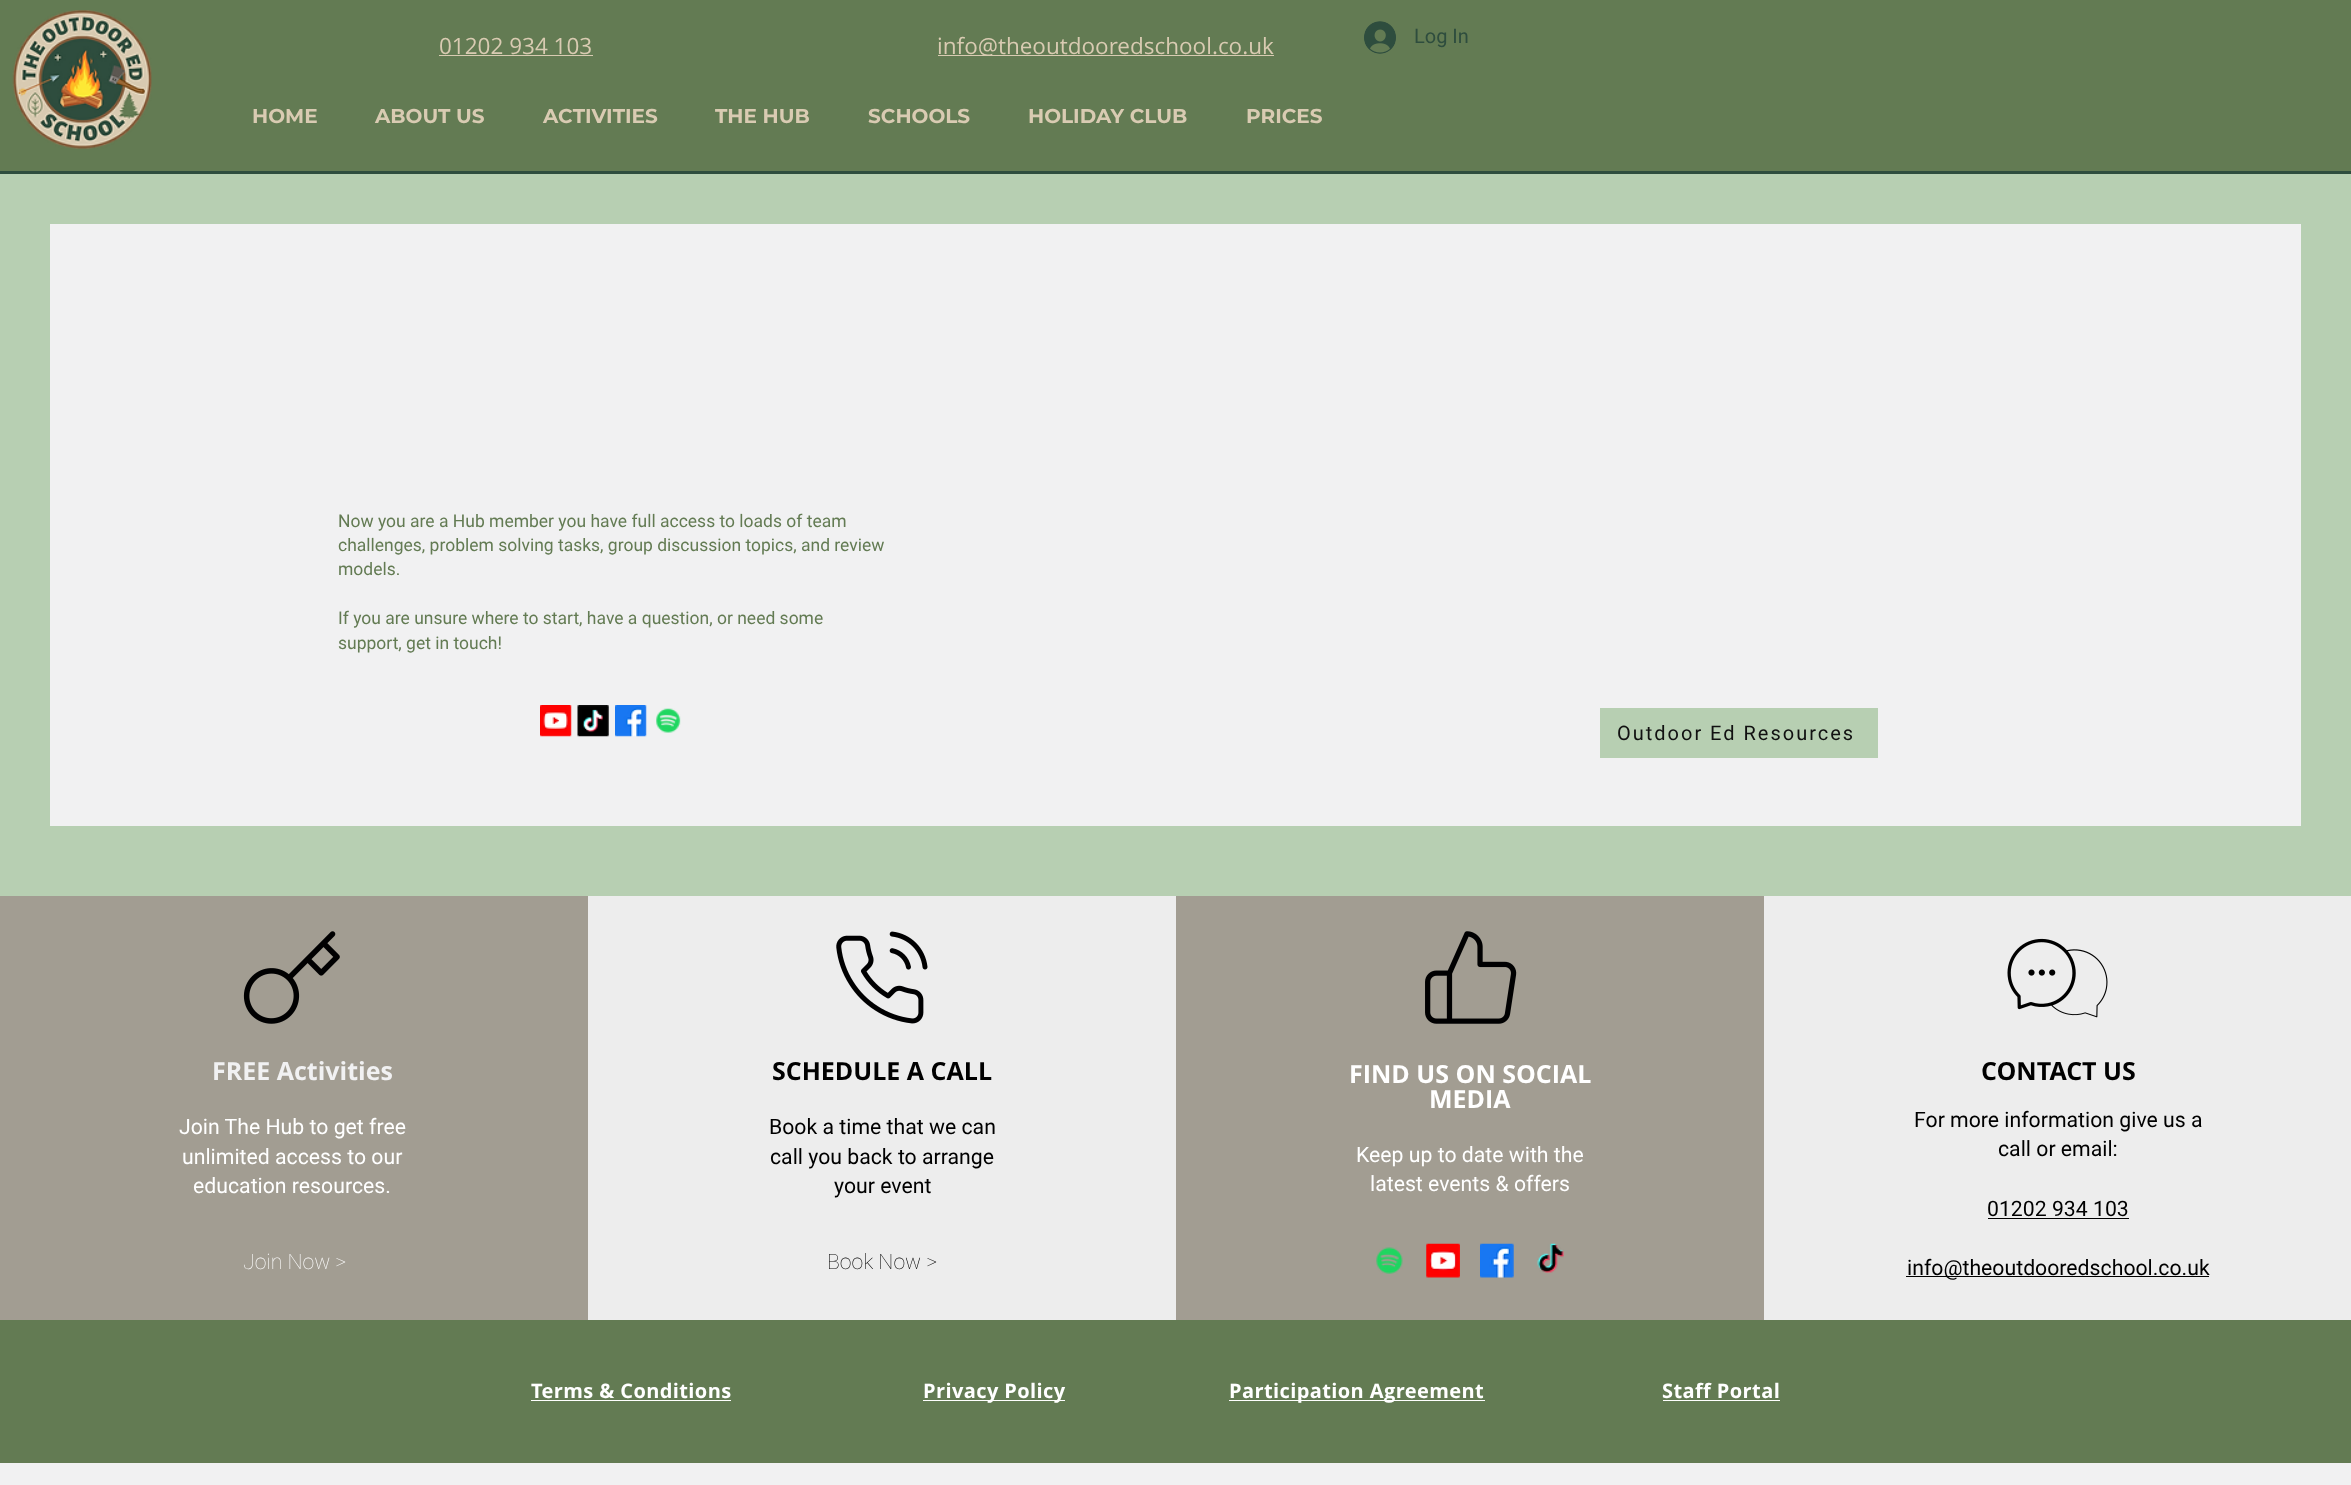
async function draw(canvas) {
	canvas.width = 2351;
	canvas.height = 1485;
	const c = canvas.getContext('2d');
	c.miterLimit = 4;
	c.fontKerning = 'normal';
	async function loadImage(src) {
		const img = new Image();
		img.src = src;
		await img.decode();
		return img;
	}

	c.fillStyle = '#f1f1f2';
	c.fillRect(0, 0, 2351, 1485);
	c.fillStyle = '#637b53';
	c.fillRect(0, 0, 2351, 171);
	c.drawImage(await loadImage('img1.png'), 12, 10, 140, 139);
	c.font = '22.5px Open Sans';
	c.fillStyle = '#d9cbb2';
	c.fillText('01202 934 103', 439, 54);
	c.fillRect(439, 55, 154, 1);
	c.fillRect(938, 55, 336, 1);
	c.fillText('info@theoutdooredschool.co.uk', 937, 54);
	c.drawImage(await loadImage('img2.png'), 1364, 21, 32, 33);
	c.font = '20px Roboto';
	c.fillStyle = '#2e4d3e';
	c.fillText('Log In', 1414, 43);
	c.font = 'bold 20px Montserrat';
	c.fillStyle = '#d9cbb2';
	for (const [text, x, y] of [
		['HOME', 252, 123],
		['ABOUT US', 375, 123],
		['ACTIVITIES', 543, 123],
		['THE HUB', 715, 123],
		['SCHOOLS', 868, 123],
		['HOLIDAY CLUB', 1028, 123],
		['PRICES', 1246, 123],
	]) {
		c.fillText(text, x, y);
	}
	for (const [x, y, w, h, color] of [
		[0, 171, 2351, 3, '#2e4d3e'],
		[0, 174, 2351, 722, '#b7cfb2'],
		[50, 224, 2251, 602, '#f1f1f2'],
	]) {
		c.fillStyle = color;
		c.fillRect(x, y, w, h);
	}
	c.font = '17.5px Roboto';
	c.fillStyle = '#637b53';
	for (const [text, x, y] of [
		['Now you are a Hub member you have full access to loads of team', 338, 527],
		['challenges, problem solving tasks, group discussion topics, and review', 338, 551],
		['models.', 338, 575],
		['If you are unsure where to start, have a question, or need some', 338, 624],
		['support, get in touch!', 338, 649],
	]) {
		c.fillText(text, x, y);
	}
	c.drawImage(await loadImage('img3.png'), 540, 705, 32, 32);
	c.drawImage(await loadImage('img4.png'), 577, 705, 32, 32);
	c.drawImage(await loadImage('img5.png'), 615, 705, 32, 32);
	c.drawImage(await loadImage('img6.png'), 656, 708, 25, 25);
	c.fillStyle = '#b7cfb2';
	c.fillRect(1600, 708, 278, 50);
	c.letterSpacing = '2px';
	c.font = '20px Roboto';
	c.fillStyle = '#111';
	c.fillText('Outdoor Ed Resources', 1617, 740);
	c.fillStyle = '#a29d92';
	c.fillRect(0, 896, 588, 424);
	c.drawImage(await loadImage('img7.png'), 243, 931, 97, 93);
	c.letterSpacing = '0px';
	c.font = 'bold 25px Open Sans';
	c.fillStyle = '#f1f1f2';
	c.fillText('FREE Activities', 212, 1080);
	c.font = '21.25px Roboto';
	c.fillStyle = '#fff';
	for (const [text, x, y] of [
		['Join The Hub to get free', 179, 1134],
		['unlimited access to our', 182, 1164],
		['education resources.', 193, 1193],
	]) {
		c.fillText(text, x, y);
	}
	c.font = '100 21.25px Roboto';
	c.fillText('Join Now >', 243, 1269);
	c.fillStyle = '#ededed';
	c.fillRect(588, 896, 588, 424);
	c.drawImage(await loadImage('img8.png'), 836, 931, 92, 93);
	c.font = 'bold 25px Open Sans';
	c.fillStyle = '#000';
	c.fillText('SCHEDULE A CALL', 772, 1080);
	c.font = '21.25px Roboto';
	for (const [text, x, y] of [
		['Book a time that we can', 769, 1134],
		['call you back to arrange', 770, 1164],
		['your event', 834, 1193],
	]) {
		c.fillText(text, x, y);
	}
	c.font = '100 21.25px Roboto';
	c.fillText('Book Now >', 827, 1269);
	c.fillStyle = '#a29d92';
	c.fillRect(1176, 896, 588, 424);
	c.drawImage(await loadImage('img9.png'), 1425, 931, 92, 93);
	c.font = 'bold 25px Open Sans';
	c.fillStyle = '#fff';
	c.fillText('FIND US ON SOCIAL', 1349, 1083);
	c.fillText('MEDIA', 1429, 1108);
	c.font = '21.25px Roboto';
	c.fillText('Keep up to date with the', 1356, 1162);
	c.fillText('latest events & offers', 1370, 1191);
	c.drawImage(await loadImage('img10.png'), 1376, 1247, 27, 27);
	c.drawImage(await loadImage('img11.png'), 1426, 1243, 34, 35);
	c.drawImage(await loadImage('img12.png'), 1480, 1243, 34, 35);
	c.drawImage(await loadImage('img13.png'), 1537, 1243, 27, 30);
	c.fillStyle = '#ededed';
	c.fillRect(1764, 896, 587, 424);
	c.drawImage(await loadImage('img14.png'), 2007, 938, 101, 80);
	c.font = 'bold 25px Open Sans';
	c.fillStyle = '#000';
	c.fillText('CONTACT US', 1981, 1080);
	c.font = '21.25px Roboto';
	for (const [text, x, y] of [
		['For more information give us a', 1914, 1127],
		['call or email:', 1998, 1156],
		['01202 934 103', 1987, 1216],
	]) {
		c.fillText(text, x, y);
	}
	c.fillRect(1988, 1218, 141, 1);
	c.fillRect(1906, 1276, 303, 1);
	c.fillText('info@theoutdooredschool.co.uk', 1907, 1275);
	c.fillStyle = '#637b53';
	c.fillRect(0, 1320, 2351, 143);
	c.letterSpacing = '0.4px';
	c.font = 'bold 20px Open Sans';
	c.fillStyle = '#fff';
	c.fillText('Terms & Conditions', 531, 1398);
	c.fillRect(531, 1400, 200, 1);
	c.fillRect(923, 1400, 142, 1);
	c.fillText('Privacy Policy', 923, 1398);
	c.fillRect(1229, 1400, 256, 1);
	c.fillText('Participation Agreement', 1229, 1398);
	c.fillText('Staff Portal', 1662, 1398);
	c.fillRect(1663, 1400, 117, 1);
}

draw(document.querySelector('canvas'));
